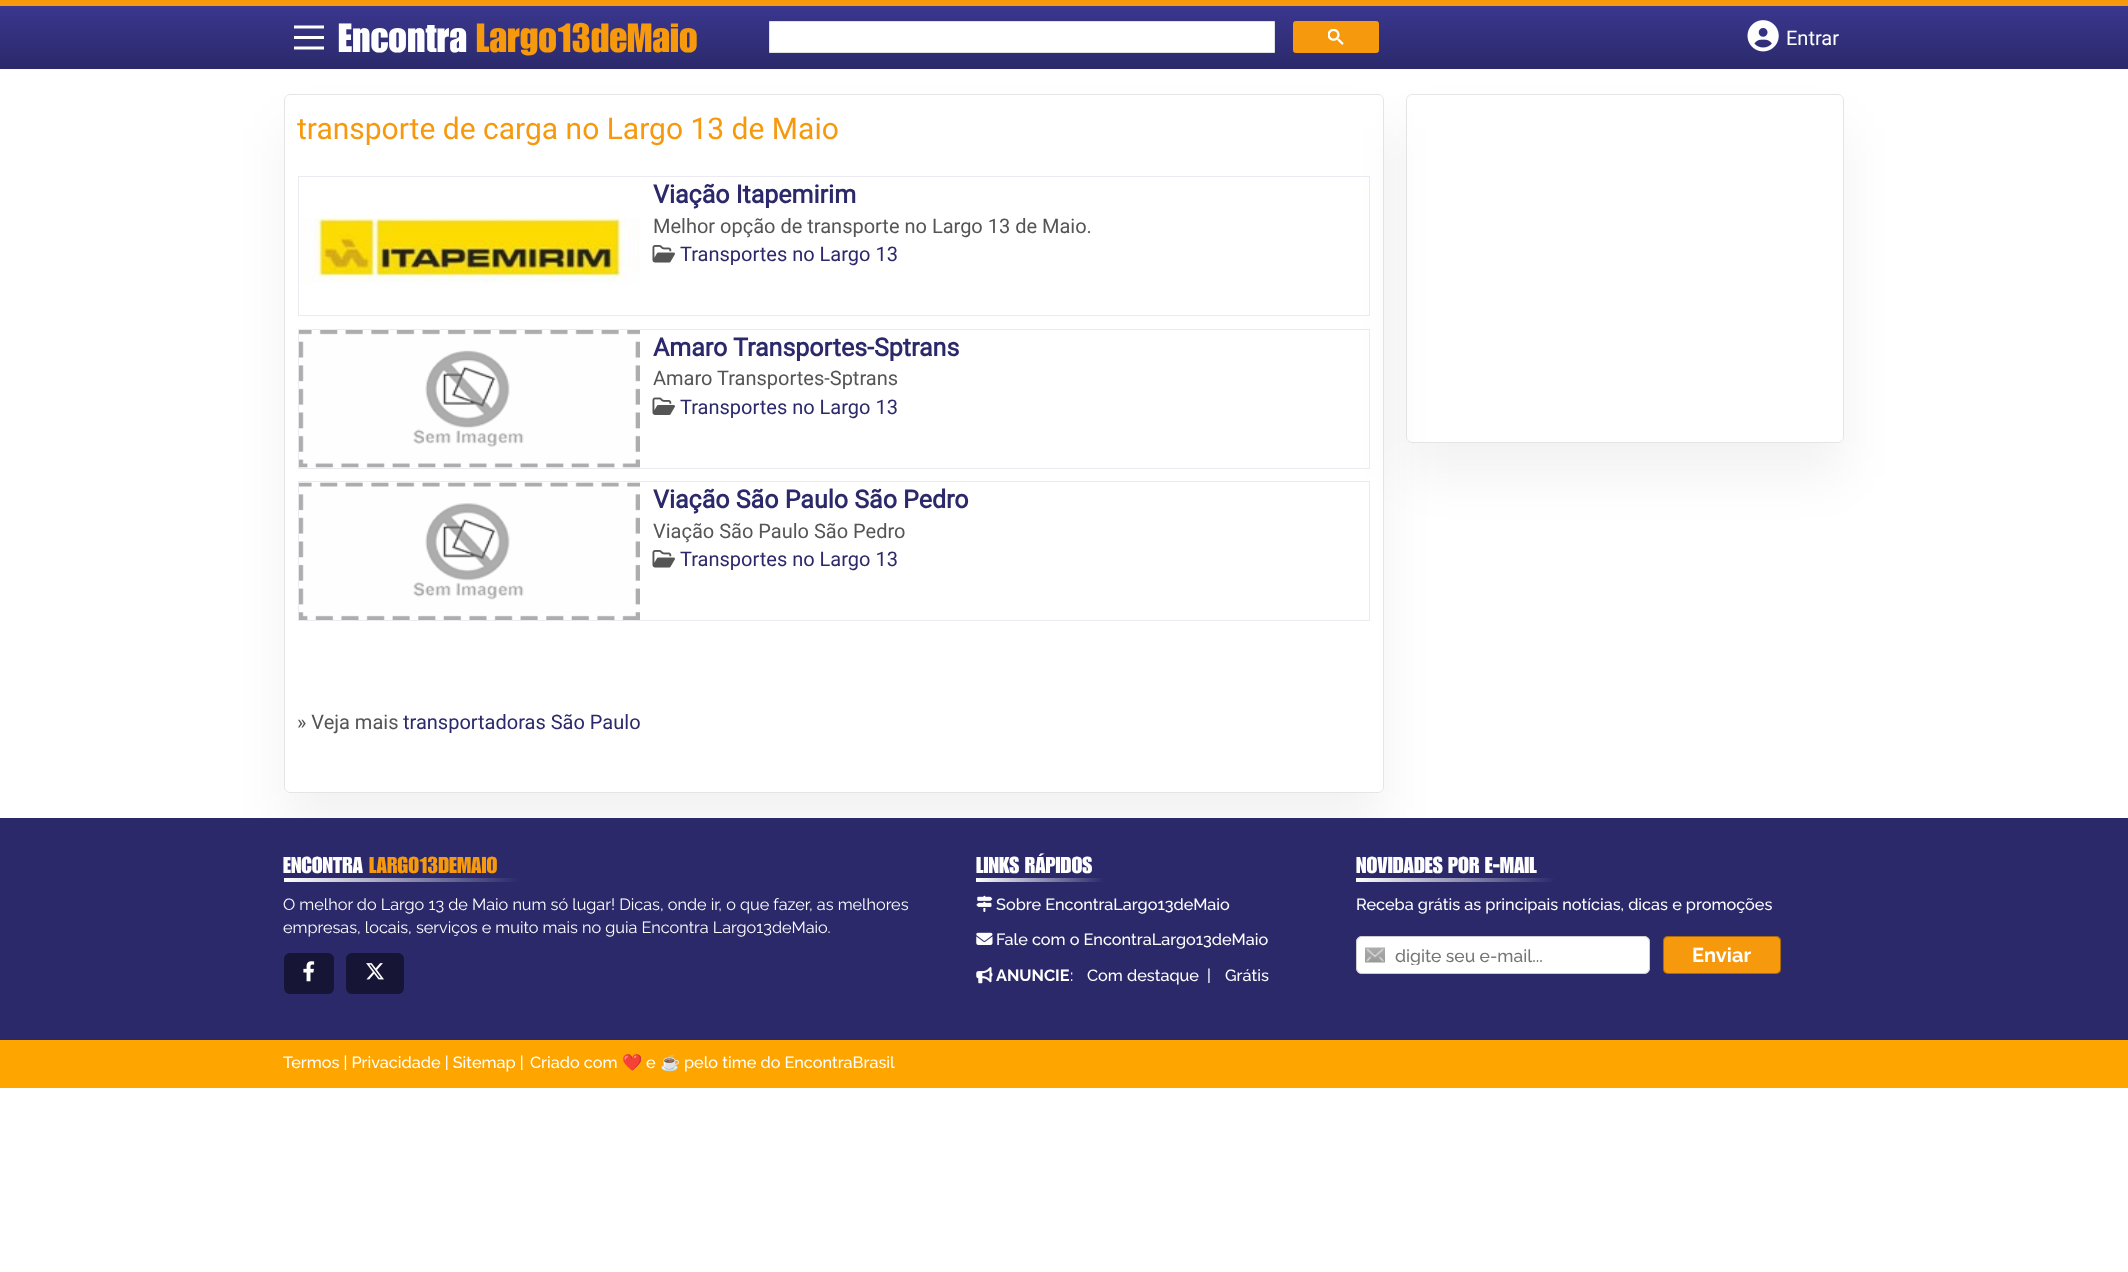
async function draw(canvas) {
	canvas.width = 2128;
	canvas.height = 1272;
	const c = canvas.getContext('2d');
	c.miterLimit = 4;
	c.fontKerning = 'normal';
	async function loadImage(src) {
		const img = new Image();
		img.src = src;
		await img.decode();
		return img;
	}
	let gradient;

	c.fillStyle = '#fff';
	c.fillRect(0, 0, 2128, 1272);
	c.save();
	c.beginPath();
	c.moveTo(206, 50);
	c.lineTo(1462, 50);
	c.lineTo(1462, 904);
	c.lineTo(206, 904);
	c.closePath();
	c.moveTo(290, 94);
	c.lineTo(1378, 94);
	c.bezierCurveTo(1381.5, 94, 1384, 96.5, 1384, 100);
	c.lineTo(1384, 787);
	c.bezierCurveTo(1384, 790.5, 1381.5, 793, 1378, 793);
	c.lineTo(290, 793);
	c.bezierCurveTo(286.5, 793, 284, 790.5, 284, 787);
	c.lineTo(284, 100);
	c.bezierCurveTo(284, 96.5, 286.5, 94, 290, 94);
	c.closePath();
	c.clip('evenodd');
	c.fillStyle = '#0000000d';
	c.filter = 'blur(25.5px)';
	c.beginPath();
	c.roundRect(284, 128, 1100, 698, 6);
	c.fill();
	c.filter = 'none';
	c.restore();
	c.beginPath();
	c.roundRect(284.5, 94.5, 1099, 698, 5.5);
	c.strokeStyle = '#0000001a';
	c.stroke();
	c.save();
	c.beginPath();
	c.moveTo(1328, 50);
	c.lineTo(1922, 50);
	c.lineTo(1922, 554);
	c.lineTo(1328, 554);
	c.closePath();
	c.moveTo(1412, 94);
	c.lineTo(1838, 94);
	c.bezierCurveTo(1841.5, 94, 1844, 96.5, 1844, 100);
	c.lineTo(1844, 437);
	c.bezierCurveTo(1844, 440.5, 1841.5, 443, 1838, 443);
	c.lineTo(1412, 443);
	c.bezierCurveTo(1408.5, 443, 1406, 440.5, 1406, 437);
	c.lineTo(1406, 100);
	c.bezierCurveTo(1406, 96.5, 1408.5, 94, 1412, 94);
	c.closePath();
	c.clip('evenodd');
	c.fillStyle = '#0000000d';
	c.filter = 'blur(25.5px)';
	c.beginPath();
	c.roundRect(1406, 128, 438, 348, 6);
	c.fill();
	c.filter = 'none';
	c.restore();
	gradient = c.createLinearGradient(1064, 6.2, 1064, 69);
	gradient.addColorStop(0, '#3a378f');
	gradient.addColorStop(1, '#2b296a');
	c.fillStyle = gradient;
	c.fillRect(0, 6, 2128, 63);
	c.fillStyle = '#f6990d';
	c.fillRect(0, 0, 2128, 6);
	c.beginPath();
	c.moveTo(294, 27);
	c.lineTo(324, 27);
	c.strokeStyle = '#fefefe';
	c.lineWidth = 3;
	c.stroke();
	c.fillStyle = '#fefefe';
	c.fillRect(294, 36, 30, 3);
	c.beginPath();
	c.moveTo(294, 48);
	c.lineTo(324, 48);
	c.stroke();
	c.font = '500 40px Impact';
	c.fillText('Encontra', 338, 52);
	c.fillStyle = '#f6990d';
	c.fillText('Largo13deMaio', 476, 52);
	c.fillStyle = '#fff';
	c.beginPath();
	c.rect(769.5, 21.5, 505, 31);
	c.fill();
	c.strokeStyle = '#dfe1e5';
	c.lineWidth = 1;
	c.stroke();
	c.fillStyle = '#f6990d';
	c.beginPath();
	c.roundRect(1293.5, 21.5, 85, 31, 2);
	c.fill();
	c.strokeStyle = '#f6990d';
	c.stroke();
	c.drawImage(await loadImage('img1.png'), 1328, 29, 16, 16);
	c.drawImage(await loadImage('img2.png'), 1747, 20, 32, 32);
	c.font = '20px Roboto';
	c.fillStyle = '#fefefe';
	c.fillText('Entrar', 1786, 45);
	c.font = '30px Roboto';
	c.fillStyle = '#f6990d';
	c.fillText('transporte de carga no Largo 13 de Maio', 297, 139);
	c.strokeStyle = '#eaeaf0';
	c.strokeRect(298.5, 176.5, 1071, 139);
	c.drawImage(await loadImage('img3.png'), 299, 218, 341, 65);
	c.font = 'bold 25px Roboto';
	c.fillStyle = '#2b296a';
	c.fillText('Viação Itapemirim', 653, 203);
	c.font = '20px Roboto';
	c.fillStyle = '#555';
	c.fillText('Melhor opção de transporte no Largo 13 de Maio.', 653, 233);
	c.drawImage(await loadImage('img4.png'), 652, 245, 23, 18);
	c.fillStyle = '#2b296a';
	c.fillText('Transportes no Largo 13', 680, 261);
	c.strokeRect(298.5, 329.5, 1071, 139);
	c.drawImage(await loadImage('img5.png'), 298, 330, 342, 138);
	c.font = 'bold 25px Roboto';
	c.fillText('Amaro Transportes-Sptrans', 653, 356);
	c.font = '20px Roboto';
	c.fillStyle = '#555';
	c.fillText('Amaro Transportes-Sptrans', 653, 385);
	c.drawImage(await loadImage('img6.png'), 652, 397, 23, 18);
	c.fillStyle = '#2b296a';
	c.fillText('Transportes no Largo 13', 680, 414);
	c.strokeRect(298.5, 481.5, 1071, 139);
	c.drawImage(await loadImage('img7.png'), 298, 482, 342, 138);
	c.font = 'bold 25px Roboto';
	c.fillText('Viação São Paulo São Pedro', 653, 508);
	c.font = '20px Roboto';
	c.fillStyle = '#555';
	c.fillText('Viação São Paulo São Pedro', 653, 538);
	c.drawImage(await loadImage('img4.png'), 652, 550, 23, 18);
	c.fillStyle = '#2b296a';
	c.fillText('Transportes no Largo 13', 680, 566);
	c.fillStyle = '#555';
	c.fillText('» Veja mais', 297, 729);
	c.fillStyle = '#2b296a';
	c.fillText('transportadoras São Paulo', 403, 729);
	c.beginPath();
	c.roundRect(1406.5, 94.5, 437, 348, 5.5);
	c.strokeStyle = '#0000001a';
	c.stroke();
	c.fillRect(0, 818, 2128, 222);
	c.font = '500 22.5px Impact';
	c.fillStyle = '#fefefe';
	c.fillText('ENCONTRA', 283, 873);
	c.fillStyle = '#f6990d';
	c.fillText('LARGO13DEMAIO', 369, 873);
	gradient = c.createLinearGradient(284, 879, 519, 879);
	gradient.addColorStop(0, '#fff');
	gradient.addColorStop(1, '#2b296a');
	c.fillStyle = gradient;
	c.fillRect(284, 878, 235, 4);
	c.font = '16.25px Raleway';
	c.fillStyle = '#fefefe';
	c.fillText('O melhor do Largo 13 de Maio num só lugar! Dicas, onde ir, o que fazer, as melhores', 283, 910);
	c.fillText('empresas, locais, serviços e muito mais no guia Encontra Largo13deMaio.', 283, 933);
	c.fillStyle = '#161535';
	c.beginPath();
	c.roundRect(284, 953, 50, 41, 6);
	c.fill();
	c.drawImage(await loadImage('img8.png'), 303, 961, 12, 21);
	c.beginPath();
	c.roundRect(346, 953, 58, 41, 6);
	c.fill();
	c.drawImage(await loadImage('img9.png'), 366, 963, 18, 17);
	c.font = '500 22.5px Impact';
	c.fillStyle = '#fefefe';
	c.fillText('LINKS RÁPIDOS', 976, 873);
	gradient = c.createLinearGradient(976, 879, 1104, 879);
	gradient.addColorStop(0, '#fff');
	gradient.addColorStop(1, '#2b296a');
	c.fillStyle = gradient;
	c.fillRect(976, 878, 128, 4);
	c.drawImage(await loadImage('img10.png'), 976, 895, 17, 17);
	c.font = '500 16.25px Raleway';
	c.fillStyle = '#fefefe';
	c.fillText('Sobre EncontraLargo13deMaio', 996, 910);
	c.drawImage(await loadImage('img11.png'), 976, 932, 17, 13);
	c.fillText('Fale com o EncontraLargo13deMaio', 996, 945);
	c.drawImage(await loadImage('img12.png'), 976, 967, 17, 17);
	c.font = 'bold 16.25px Raleway';
	c.fillText('ANUNCIE', 996, 981);
	c.font = '500 16.25px Raleway';
	for (const [text, x, y] of [
		[':', 1070, 981],
		['Com destaque', 1087, 981],
		['|', 1207, 981],
		['Grátis', 1225, 981],
	]) {
		c.fillText(text, x, y);
	}
	c.font = '500 22.5px Impact';
	c.fillText('NOVIDADES POR E-MAIL', 1356, 873);
	gradient = c.createLinearGradient(1356, 879, 1555, 879);
	gradient.addColorStop(0, '#fff');
	gradient.addColorStop(1, '#2b296a');
	c.fillStyle = gradient;
	c.fillRect(1356, 878, 199, 4);
	c.font = '500 16.25px Raleway';
	c.fillStyle = '#fefefe';
	c.fillText('Receba grátis as principais notícias, dicas e promoções', 1356, 910);
	c.fillStyle = '#fff';
	c.beginPath();
	c.roundRect(1356, 936, 294, 38, 6);
	c.fill();
	c.drawImage(await loadImage('img13.png'), 1365, 947, 20, 16);
	c.beginPath();
	c.roundRect(1356.5, 936.5, 293, 37, 5.5);
	c.strokeStyle = '#ccc';
	c.stroke();
	c.save();
	c.beginPath();
	c.rect(1395, 945, 254, 20);
	c.clip();
	c.font = '500 17.5px Raleway';
	c.fillStyle = '#757575';
	c.fillText('digite seu e-mail...', 1395, 962);
	c.restore();
	c.fillStyle = '#f6990d';
	c.beginPath();
	c.roundRect(1663, 936, 118, 38, 5);
	c.fill();
	c.beginPath();
	c.roundRect(1663.5, 936.5, 117, 37, 4.5);
	c.strokeStyle = '#0000004d';
	c.stroke();
	c.font = 'bold 20px Raleway';
	c.fillStyle = '#fefefe';
	c.fillText('Enviar', 1692, 962);
	c.fillStyle = '#ffa500';
	c.fillRect(0, 1040, 2128, 48);
	c.font = '500 16.25px Raleway';
	c.fillStyle = '#fefefe';
	c.fillText('Termos | Privacidade | Sitemap |', 283, 1068);
	c.fillText('Criado com', 530, 1068);
	c.font = '16.25px Noto Color Emoji';
	c.fillText('❤️', 622, 1068);
	c.font = '500 16.25px Raleway';
	c.fillText('e', 646, 1068);
	c.font = '16.25px Noto Color Emoji';
	c.fillText('☕', 660, 1068);
	c.font = '500 16.25px Raleway';
	c.fillText('pelo time do EncontraBrasil', 684, 1068);
}

draw(document.querySelector('canvas'));
